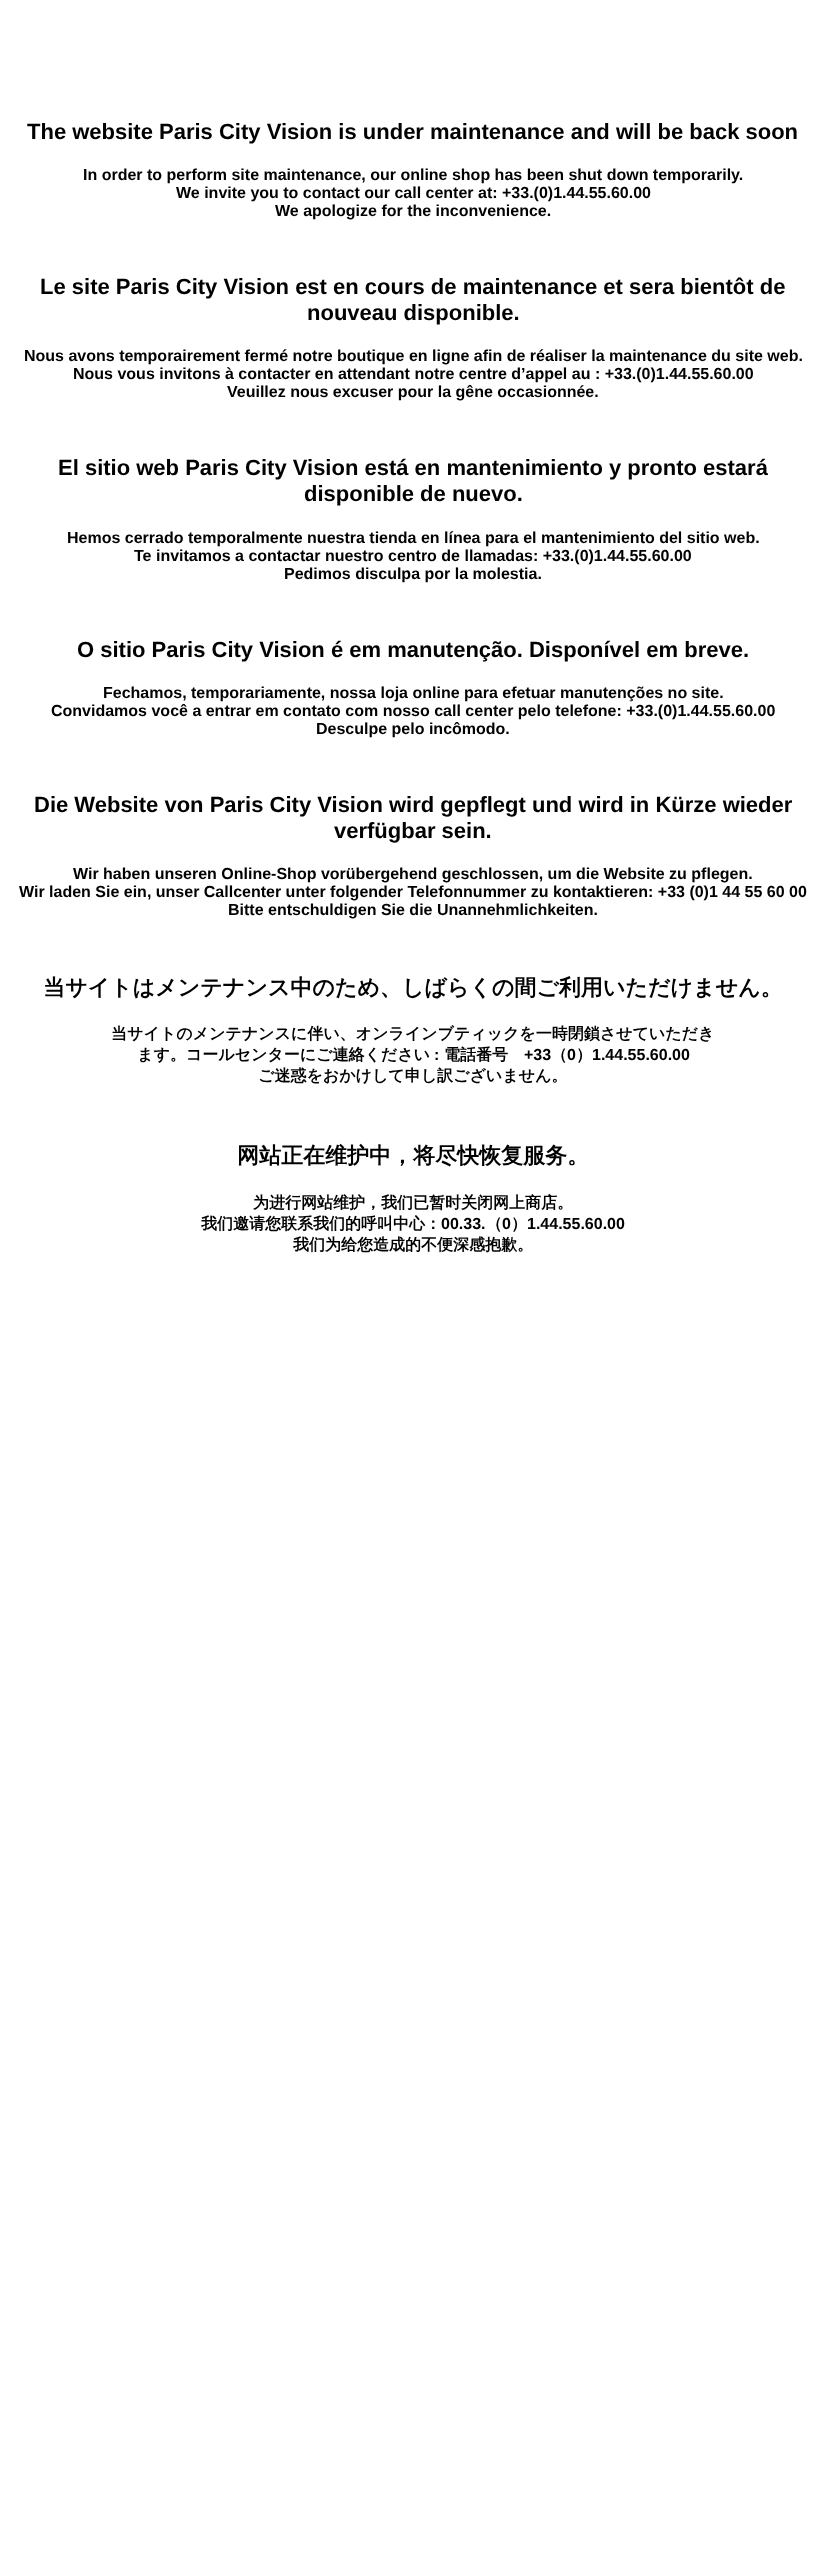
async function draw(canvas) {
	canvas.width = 826;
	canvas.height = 2566;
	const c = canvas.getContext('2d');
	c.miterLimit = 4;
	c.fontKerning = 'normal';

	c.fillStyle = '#fff';
	c.fillRect(0, 0, 826, 2566);
	c.font = 'bold 22px Liberation Sans';
	c.fillStyle = '#000';
	c.fillText('The website Paris City Vision is under maintenance and will be back soon', 27, 139);
	c.font = 'bold 16px Liberation Sans';
	for (const [text, x, y] of [
		['In order to perform site maintenance, our online shop has been shut down temporarily.', 83, 180],
		['We invite you to contact our call center at: +33.(0)1.44.55.60.00', 176, 198],
		['We apologize for the inconvenience.', 275, 216],
	]) {
		c.fillText(text, x, y);
	}
	c.font = 'bold 22px Liberation Sans';
	c.fillText('Le site Paris City Vision est en cours de maintenance et sera bientôt de', 40, 294);
	c.fillText('nouveau disponible.', 307, 320);
	c.font = 'bold 16px Liberation Sans';
	for (const [text, x, y] of [
		['Nous avons temporairement fermé notre boutique en ligne afin de réaliser la maintenance du site web.', 24, 361],
		['Nous vous invitons à contacter en attendant notre centre d’appel au : +33.(0)1.44.55.60.00', 73, 379],
		['Veuillez nous excuser pour la gêne occasionnée.', 227, 397],
	]) {
		c.fillText(text, x, y);
	}
	c.font = 'bold 22px Liberation Sans';
	c.fillText('El sitio web Paris City Vision está en mantenimiento y pronto estará', 58, 475);
	c.fillText('disponible de nuevo.', 304, 501);
	c.font = 'bold 16px Liberation Sans';
	for (const [text, x, y] of [
		['Hemos cerrado temporalmente nuestra tienda en línea para el mantenimiento del sitio web.', 67, 543],
		['Te invitamos a contactar nuestro centro de llamadas: +33.(0)1.44.55.60.00', 134, 561],
		['Pedimos disculpa por la molestia.', 284, 579],
	]) {
		c.fillText(text, x, y);
	}
	c.font = 'bold 22px Liberation Sans';
	c.fillText('O sitio Paris City Vision é em manutenção. Disponível em breve.', 77, 657);
	c.font = 'bold 16px Liberation Sans';
	for (const [text, x, y] of [
		['Fechamos, temporariamente, nossa loja online para efetuar manutenções no site.', 103, 698],
		['Convidamos você a entrar em contato com nosso call center pelo telefone: +33.(0)1.44.55.60.00', 51, 716],
		['Desculpe pelo incômodo.', 316, 734],
	]) {
		c.fillText(text, x, y);
	}
	c.font = 'bold 22px Liberation Sans';
	c.fillText('Die Website von Paris City Vision wird gepflegt und wird in Kürze wieder', 34, 812);
	c.fillText('verfügbar sein.', 334, 838);
	c.font = 'bold 16px Liberation Sans';
	for (const [text, x, y] of [
		['Wir haben unseren Online-Shop vorübergehend geschlossen, um die Website zu pflegen.', 73, 879],
		['Wir laden Sie ein, unser Callcenter unter folgender Telefonnummer zu kontaktieren: +33 (0)1 44 55 60 00', 19, 897],
		['Bitte entschuldigen Sie die Unannehmlichkeiten.', 228, 915],
	]) {
		c.fillText(text, x, y);
	}
	c.font = 'bold 22px WenQuanYi Zen Hei';
	c.fillText('当サイトはメンテナンス中のため、しばらくの間ご利用いただけません。', 43, 995);
	c.font = 'bold 16px WenQuanYi Zen Hei';
	c.fillText('当サイトのメンテナンスに伴い、オンラインブティックを一時閉鎖させていただき', 111, 1039);
	c.fillText('ます。コールセンターにご連絡ください', 137, 1060);
	c.font = 'bold 16px Liberation Sans';
	c.fillText(':', 434, 1060);
	c.font = 'bold 16px WenQuanYi Zen Hei';
	c.fillText('電話番号', 444, 1060);
	c.font = 'bold 16px Liberation Sans';
	c.fillText('+33', 524, 1060);
	c.font = 'bold 16px WenQuanYi Zen Hei';
	c.fillText('（', 551, 1060);
	c.font = 'bold 16px Liberation Sans';
	c.fillText('0', 567, 1060);
	c.font = 'bold 16px WenQuanYi Zen Hei';
	c.fillText('）', 576, 1060);
	c.font = 'bold 16px Liberation Sans';
	c.fillText('1.44.55.60.00', 592, 1060);
	c.font = 'bold 16px WenQuanYi Zen Hei';
	c.fillText('ご迷惑をおかけして申し訳ございません。', 258, 1081);
	c.font = 'bold 22px WenQuanYi Zen Hei';
	c.fillText('网站正在维护中，将尽快恢复服务。', 237, 1163);
	c.font = 'bold 16px WenQuanYi Zen Hei';
	c.fillText('为进行网站维护，我们已暂时关闭网上商店。', 253, 1208);
	c.fillText('我们邀请您联系我们的呼叫中心：', 201, 1229);
	c.font = 'bold 16px Liberation Sans';
	c.fillText('00.33.', 441, 1229);
	c.font = 'bold 16px WenQuanYi Zen Hei';
	c.fillText('（', 486, 1229);
	c.font = 'bold 16px Liberation Sans';
	c.fillText('0', 502, 1229);
	c.font = 'bold 16px WenQuanYi Zen Hei';
	c.fillText('）', 511, 1229);
	c.font = 'bold 16px Liberation Sans';
	c.fillText('1.44.55.60.00', 527, 1229);
	c.font = 'bold 16px WenQuanYi Zen Hei';
	c.fillText('我们为给您造成的不便深感抱歉。', 293, 1250);
}

draw(document.querySelector('canvas'));
